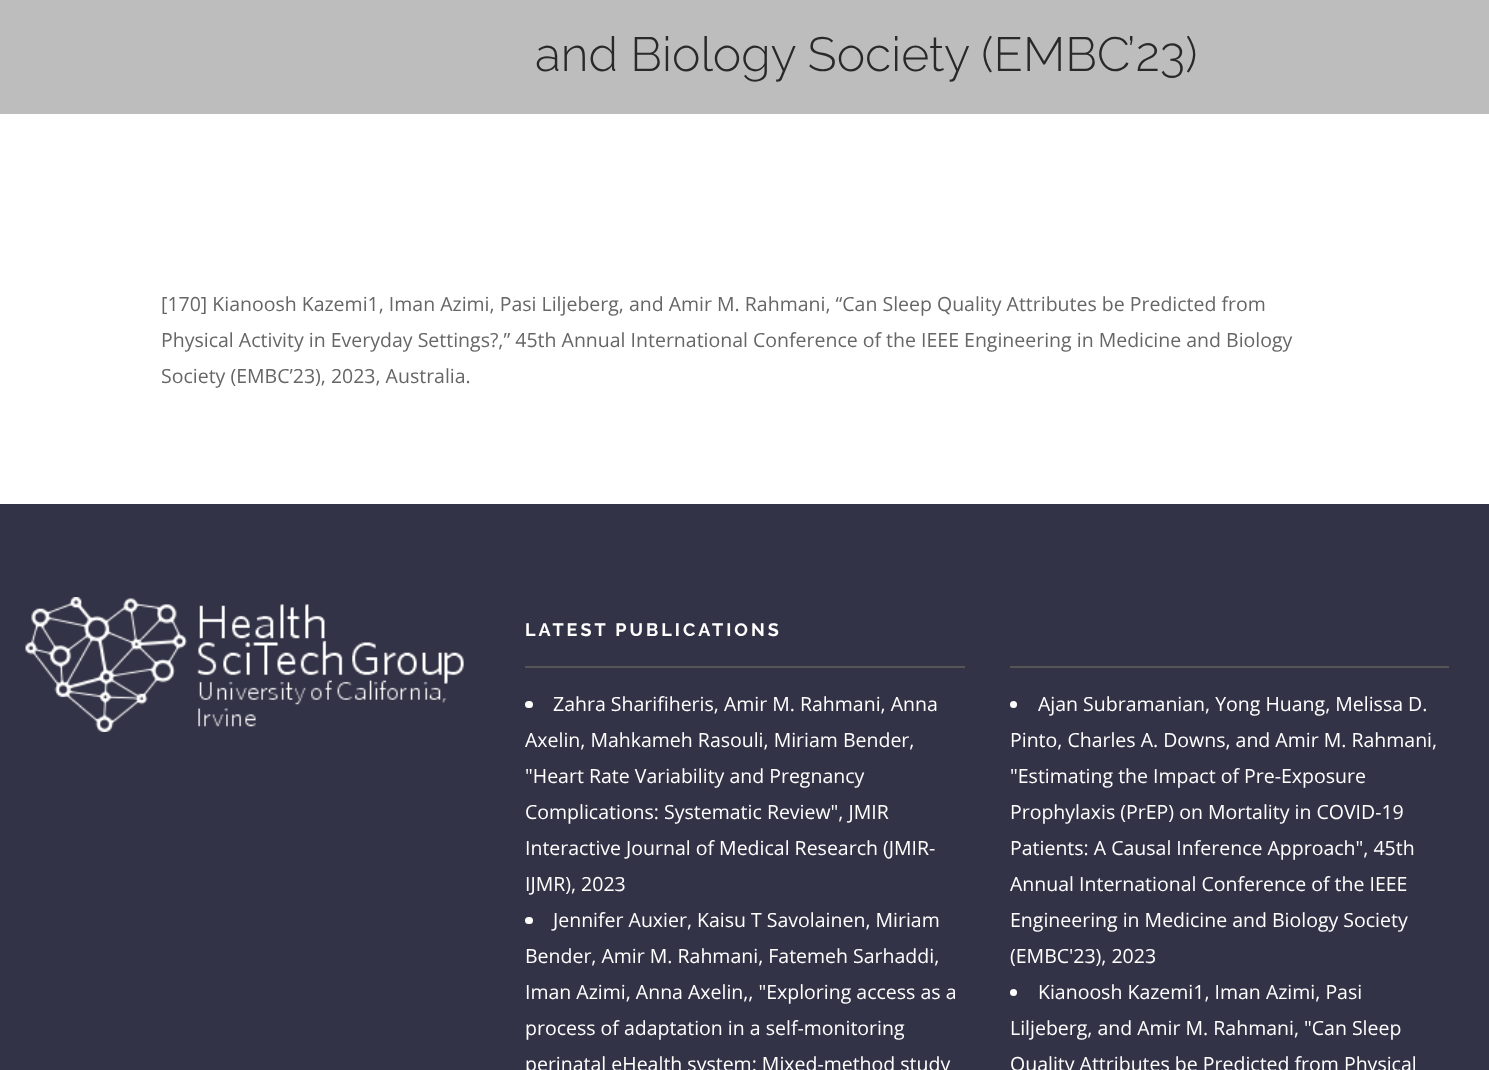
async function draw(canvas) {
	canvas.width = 1489;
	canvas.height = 1070;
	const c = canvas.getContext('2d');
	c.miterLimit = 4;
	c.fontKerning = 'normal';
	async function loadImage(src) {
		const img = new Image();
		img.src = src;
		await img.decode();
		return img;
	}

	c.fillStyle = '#fff';
	c.fillRect(0, 0, 1489, 1070);
	c.fillStyle = '#bdbdbd';
	c.fillRect(0, 0, 1489, 114);
	c.font = '300 48px Raleway';
	c.fillStyle = '#292929';
	c.fillText('and Biology Society (EMBC’23)', 535, 71);
	c.font = '19.5px Open Sans';
	c.fillStyle = '#666';
	for (const [text, x, y] of [
		['[170] Kianoosh Kazemi1, Iman Azimi, Pasi Liljeberg, and Amir M. Rahmani, “Can Sleep Quality Attributes be Predicted from', 161, 311],
		['Physical Activity in Everyday Settings?,” 45th Annual International Conference of the IEEE Engineering in Medicine and Biology', 161, 347],
		['Society (EMBC’23), 2023, Australia.', 161, 383],
	]) {
		c.fillText(text, x, y);
	}
	c.fillStyle = '#333347';
	c.fillRect(0, 504, 1489, 566);
	c.drawImage(await loadImage('img1.png'), 25, 597, 439, 135);
	c.letterSpacing = '3px';
	c.font = 'bold 18px Raleway';
	c.fillStyle = '#fff';
	c.fillText('LATEST PUBLICATIONS', 525, 636);
	c.fillStyle = '#555';
	c.fillRect(525, 666, 440, 2);
	c.fillStyle = '#fefefe';
	c.beginPath();
	c.roundRect(525, 701, 8, 7, 3.5);
	c.fill();
	c.letterSpacing = '0px';
	c.font = '19.5px Open Sans';
	c.fillStyle = '#fff';
	for (const [text, x, y] of [
		['Zahra Sharifiheris, Amir M. Rahmani, Anna', 553, 711],
		['Axelin, Mahkameh Rasouli, Miriam Bender,', 525, 747],
		['"Heart Rate Variability and Pregnancy', 525, 783],
		['Complications: Systematic Review", JMIR', 525, 819],
		['Interactive Journal of Medical Research (JMIR-', 525, 855],
		['IJMR), 2023', 525, 891],
	]) {
		c.fillText(text, x, y);
	}
	c.fillStyle = '#fefefe';
	c.beginPath();
	c.roundRect(525, 917, 8, 7, 3.5);
	c.fill();
	c.fillStyle = '#fff';
	for (const [text, x, y] of [
		['Jennifer Auxier, Kaisu T Savolainen, Miriam', 553, 927],
		['Bender, Amir M. Rahmani, Fatemeh Sarhaddi,', 525, 963],
		['Iman Azimi, Anna Axelin,, "Exploring access as a', 525, 999],
		['process of adaptation in a self-monitoring', 525, 1035],
		['perinatal eHealth system: Mixed-method study', 525, 1071],
	]) {
		c.fillText(text, x, y);
	}
	c.fillStyle = '#555';
	c.fillRect(1010, 666, 439, 2);
	c.fillStyle = '#fefefe';
	c.beginPath();
	c.arc(1013.5, 704.5, 3.5, 0, 2 * Math.PI);
	c.fill();
	c.fillStyle = '#fff';
	for (const [text, x, y] of [
		['Ajan Subramanian, Yong Huang, Melissa D.', 1038, 711],
		['Pinto, Charles A. Downs, and Amir M. Rahmani,', 1010, 747],
		['"Estimating the Impact of Pre-Exposure', 1010, 783],
		['Prophylaxis (PrEP) on Mortality in COVID-19', 1010, 819],
		['Patients: A Causal Inference Approach", 45th', 1010, 855],
		['Annual International Conference of the IEEE', 1010, 891],
		['Engineering in Medicine and Biology Society', 1010, 927],
		['(EMBC\'23), 2023', 1010, 963],
	]) {
		c.fillText(text, x, y);
	}
	c.fillStyle = '#fefefe';
	c.beginPath();
	c.arc(1013.5, 992.5, 3.5, 0, 2 * Math.PI);
	c.fill();
	c.fillStyle = '#fff';
	for (const [text, x, y] of [
		['Kianoosh Kazemi1, Iman Azimi, Pasi', 1038, 999],
		['Liljeberg, and Amir M. Rahmani, "Can Sleep', 1010, 1035],
		['Quality Attributes be Predicted from Physical', 1010, 1071],
	]) {
		c.fillText(text, x, y);
	}
}

draw(document.querySelector('canvas'));
